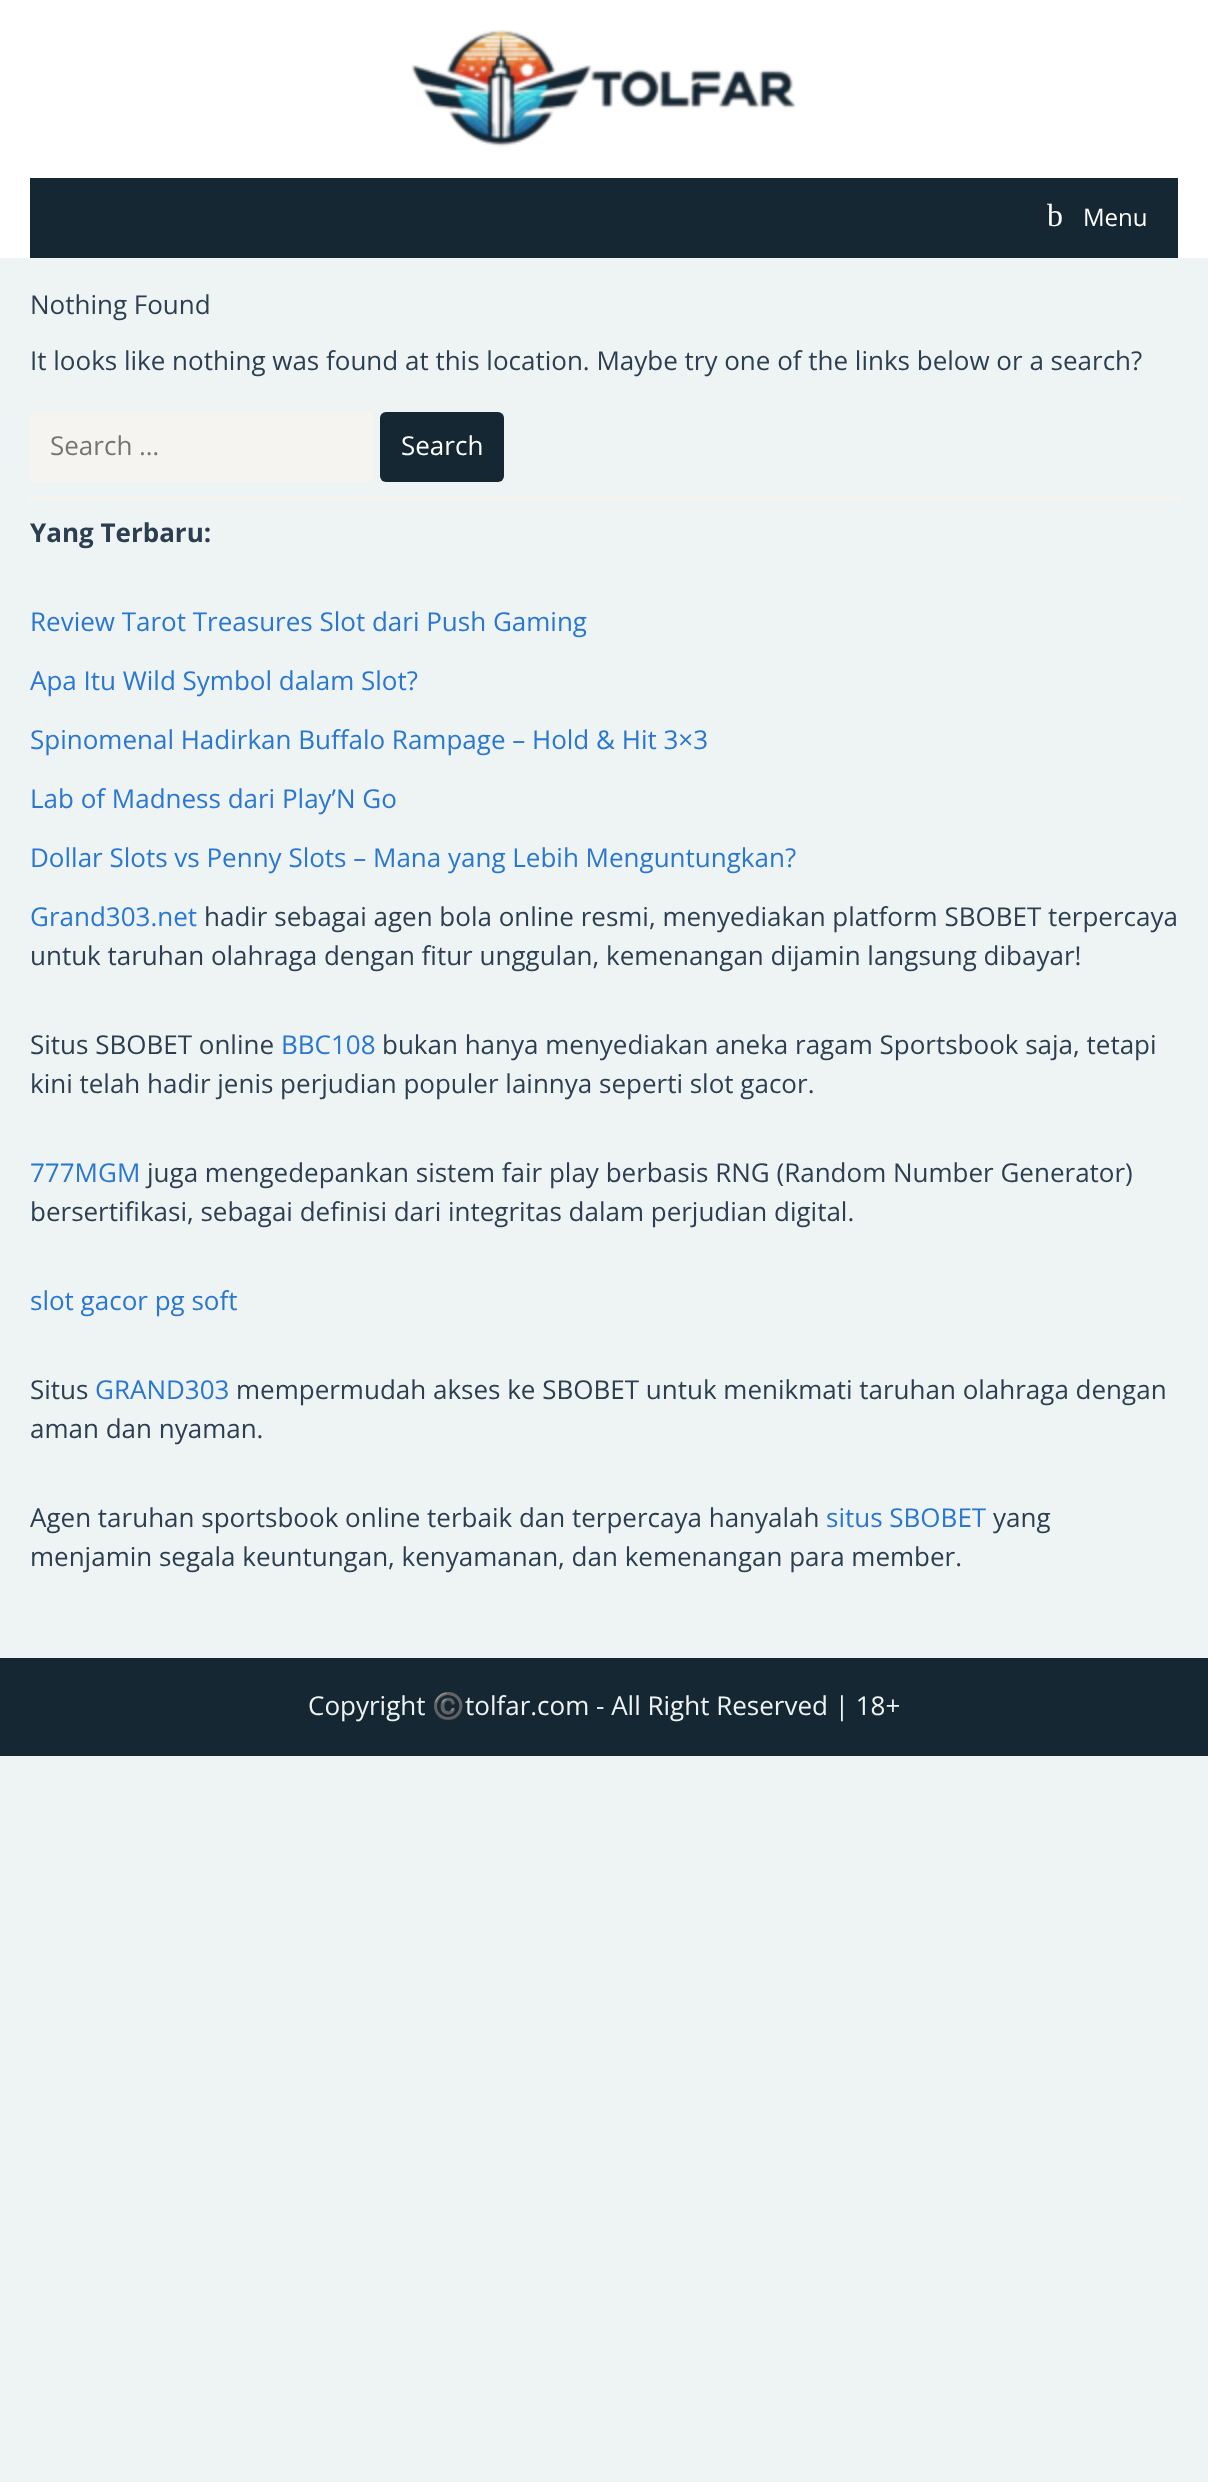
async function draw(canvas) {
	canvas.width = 1208;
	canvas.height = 2482;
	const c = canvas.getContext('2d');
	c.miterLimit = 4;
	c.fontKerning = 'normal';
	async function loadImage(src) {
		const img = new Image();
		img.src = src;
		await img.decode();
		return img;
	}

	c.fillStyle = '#eef3f4';
	c.fillRect(0, 0, 1208, 2482);
	c.fillStyle = '#fff';
	c.fillRect(0, 0, 1208, 258);
	c.drawImage(await loadImage('img1.png'), 411, 30, 385, 117);
	c.fillStyle = '#142732';
	c.fillRect(30, 178, 1148, 80);
	c.font = '32px Liberation Serif';
	c.fillStyle = '#fff';
	c.fillText('b', 1047, 226);
	c.font = '24px Open Sans';
	c.fillText('Menu', 1083, 226);
	c.fillStyle = '#f6f4f1';
	c.fillRect(30, 496, 1148, 4);
	c.font = '26px Open Sans';
	c.fillStyle = '#2c3e50';
	c.fillText('Nothing Found', 30, 314);
	c.fillText('It looks like nothing was found at this location. Maybe try one of the links below or a search?', 30, 370);
	c.fillStyle = '#f6f4f1';
	c.beginPath();
	c.roundRect(30, 412, 344, 70, 6);
	c.fill();
	c.fillStyle = '#757575';
	c.fillText('Search …', 50, 455);
	c.fillStyle = '#142732';
	c.beginPath();
	c.roundRect(380, 412, 124, 70, 6);
	c.fill();
	c.fillStyle = '#fff';
	c.fillText('Search', 401, 455);
	c.font = 'bold 26px Open Sans';
	c.fillStyle = '#2c3e50';
	c.fillText('Yang Terbaru:', 30, 542);
	c.font = '26px Open Sans';
	c.fillStyle = '#2977d1';
	for (const [text, x, y] of [
		['Review Tarot Treasures Slot dari Push Gaming', 30, 631],
		['Apa Itu Wild Symbol dalam Slot?', 30, 690],
		['Spinomenal Hadirkan Buffalo Rampage – Hold & Hit 3×3', 30, 749],
		['Lab of Madness dari Play’N Go', 30, 808],
		['Dollar Slots vs Penny Slots – Mana yang Lebih Menguntungkan?', 30, 867],
		['Grand303.net', 30, 926],
	]) {
		c.fillText(text, x, y);
	}
	c.fillStyle = '#2c3e50';
	for (const [text, x, y] of [
		['hadir sebagai agen bola online resmi, menyediakan platform SBOBET terpercaya', 204, 926],
		['untuk taruhan olahraga dengan fitur unggulan, kemenangan dijamin langsung dibayar!', 30, 965],
		['Situs SBOBET online', 30, 1054],
	]) {
		c.fillText(text, x, y);
	}
	c.fillStyle = '#2977d1';
	c.fillText('BBC108', 281, 1054);
	c.fillStyle = '#2c3e50';
	c.fillText('bukan hanya menyediakan aneka ragam Sportsbook saja, tetapi', 382, 1054);
	c.fillText('kini telah hadir jenis perjudian populer lainnya seperti slot gacor.', 30, 1093);
	c.fillStyle = '#2977d1';
	c.fillText('777MGM', 30, 1182);
	c.fillStyle = '#2c3e50';
	c.fillText('juga mengedepankan sistem fair play berbasis RNG (Random Number Generator)', 147, 1182);
	c.fillText('bersertifikasi, sebagai definisi dari integritas dalam perjudian digital.', 30, 1221);
	c.fillStyle = '#2977d1';
	c.fillText('slot gacor pg soft', 30, 1310);
	c.fillStyle = '#2c3e50';
	c.fillText('Situs', 30, 1399);
	c.fillStyle = '#2977d1';
	c.fillText('GRAND303', 95, 1399);
	c.fillStyle = '#2c3e50';
	for (const [text, x, y] of [
		['mempermudah akses ke SBOBET untuk menikmati taruhan olahraga dengan', 236, 1399],
		['aman dan nyaman.', 30, 1438],
		['Agen taruhan sportsbook online terbaik dan terpercaya hanyalah', 30, 1527],
	]) {
		c.fillText(text, x, y);
	}
	c.fillStyle = '#2977d1';
	c.fillText('situs SBOBET', 826, 1527);
	c.fillStyle = '#2c3e50';
	c.fillText('yang', 993, 1527);
	c.fillText('menjamin segala keuntungan, kenyamanan, dan kemenangan para member.', 30, 1566);
	c.fillStyle = '#142732';
	c.fillRect(0, 1658, 1208, 98);
	c.fillStyle = '#eef3f4';
	c.fillText('Copyright', 308, 1715);
	c.font = '26px Noto Color Emoji';
	c.fillText('©️', 432, 1715);
	c.font = '26px Open Sans';
	c.fillText('tolfar.com - All Right Reserved | 18+', 465, 1715);
}

draw(document.querySelector('canvas'));
